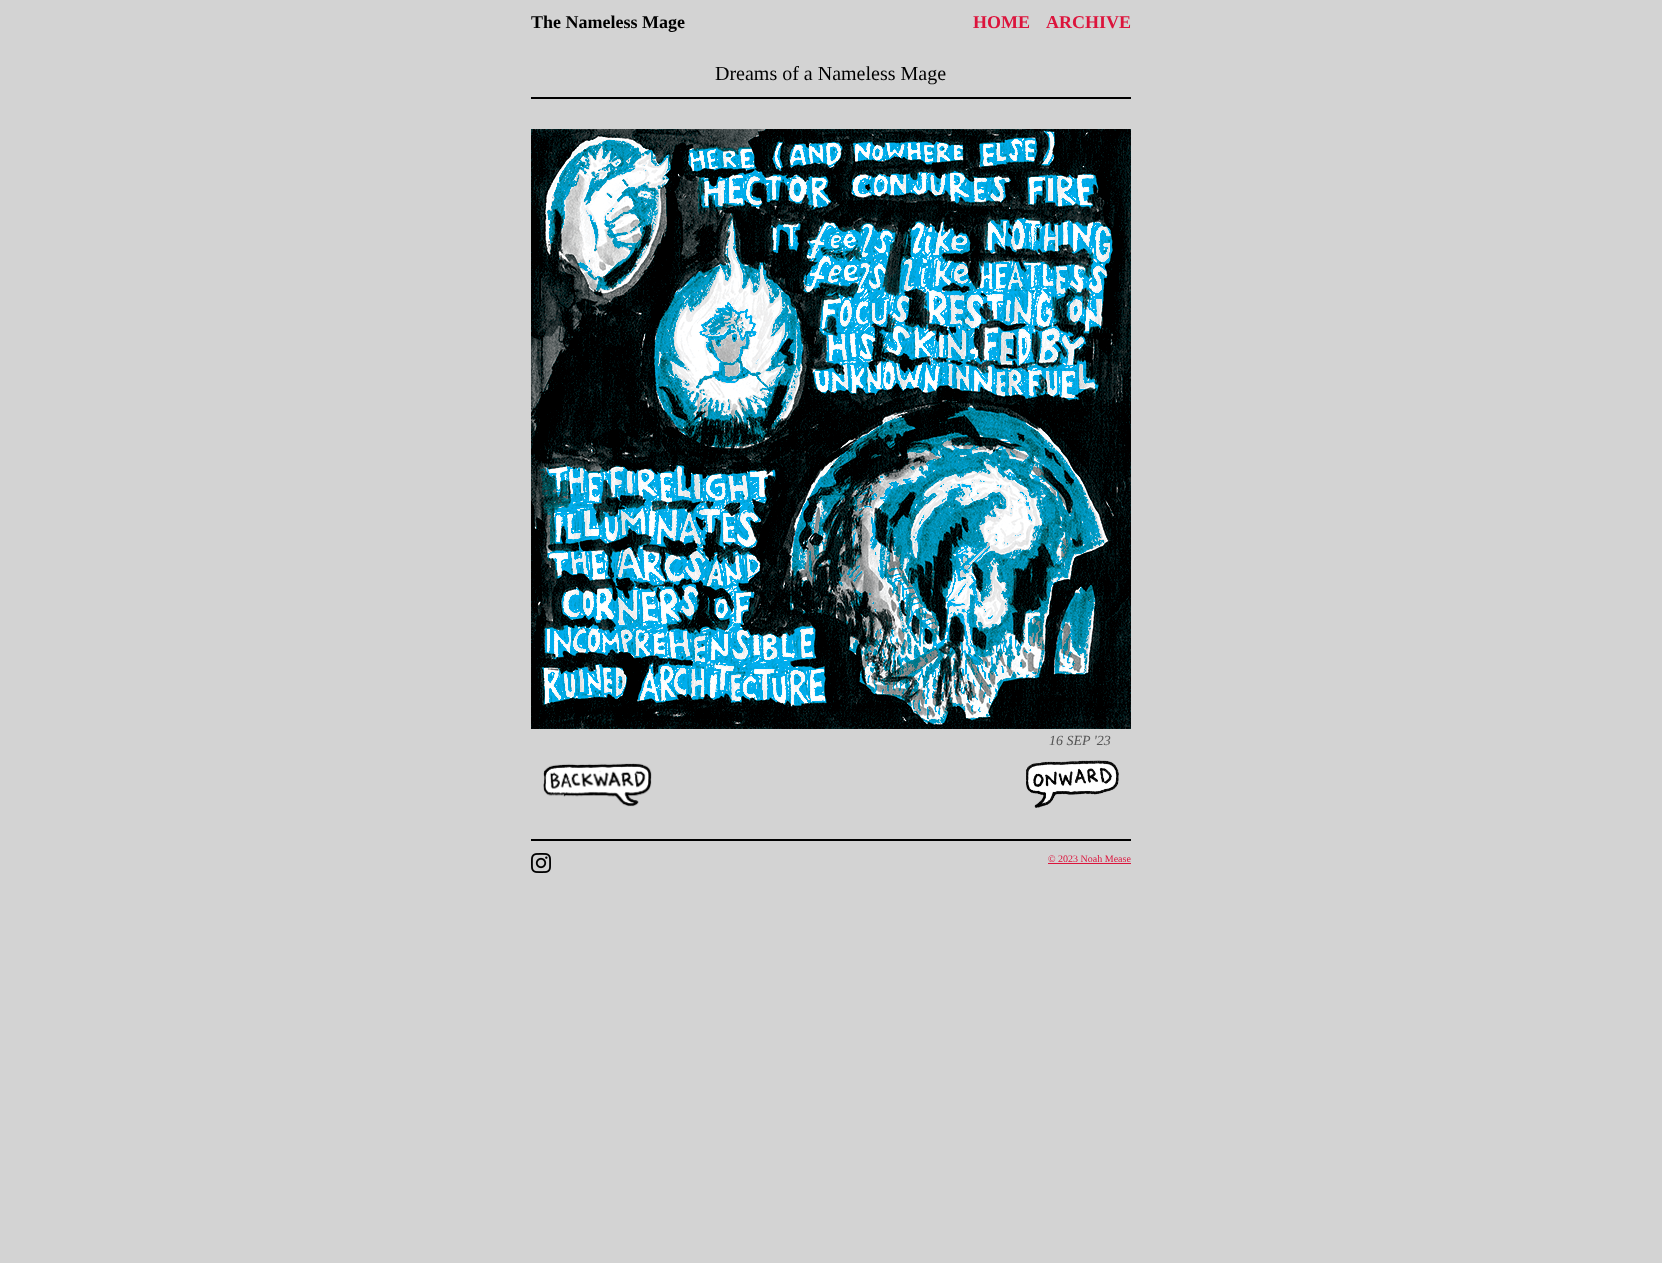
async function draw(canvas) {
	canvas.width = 1662;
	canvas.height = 1263;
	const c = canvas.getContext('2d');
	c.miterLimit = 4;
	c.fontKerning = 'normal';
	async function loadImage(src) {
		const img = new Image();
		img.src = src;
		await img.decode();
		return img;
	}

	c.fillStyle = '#d3d3d3';
	c.fillRect(0, 0, 1662, 1263);
	c.fillStyle = '#000';
	c.fillRect(531, 97, 600, 2);
	c.font = 'bold 18px Liberation Serif';
	c.fillText('The Nameless Mage', 531, 28);
	c.fillStyle = '#dc143c';
	c.fillText('HOME', 973, 28);
	c.fillText('ARCHIVE', 1046, 28);
	c.font = '20px Liberation Serif';
	c.fillStyle = '#000';
	c.fillText('Dreams of a Nameless Mage', 715, 80);
	c.drawImage(await loadImage('img1.png'), 531, 129, 600, 600);
	c.font = 'italic 14px Liberation Serif';
	c.fillStyle = '#555';
	c.fillText('16 SEP \'23', 1049, 745);
	c.drawImage(await loadImage('img2.png'), 543, 763, 109, 44);
	c.drawImage(await loadImage('img3.png'), 1026, 760, 93, 48);
	c.fillStyle = '#000';
	c.fillRect(531, 839, 600, 2);
	c.drawImage(await loadImage('img4.png'), 531, 853, 20, 20);
	c.font = '10px Liberation Serif';
	c.fillStyle = '#dc143c';
	c.fillText('© 2023 Noah Mease', 1048, 862);
	c.fillRect(1048, 863, 83, 1);
}

draw(document.querySelector('canvas'));
